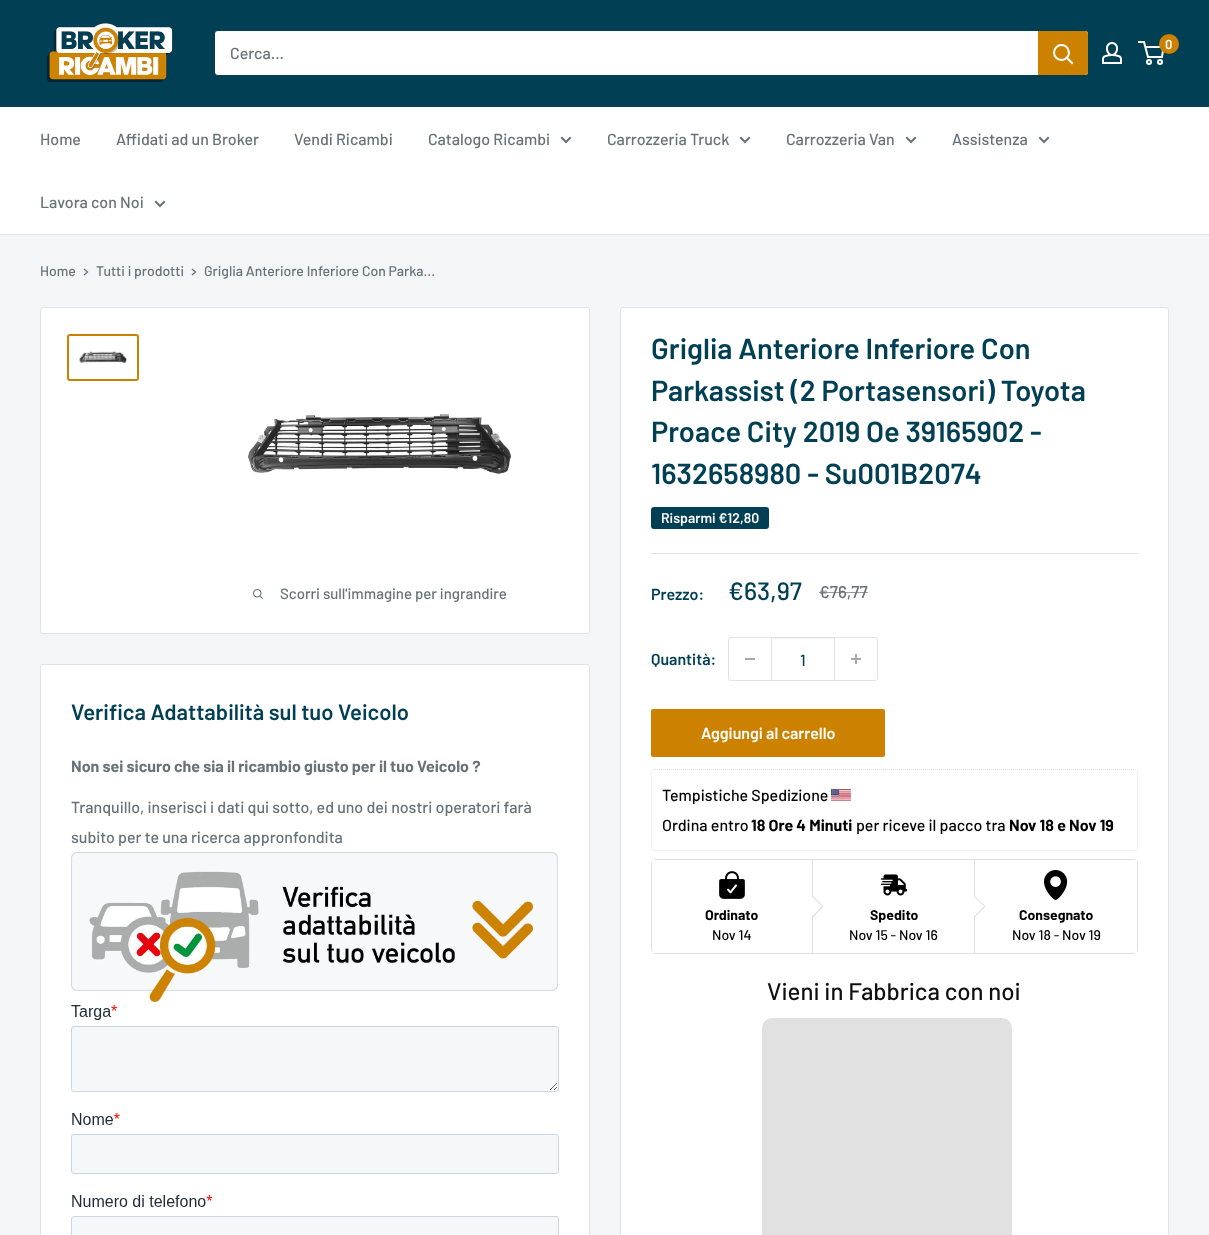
async function draw(canvas) {
	canvas.width = 1209;
	canvas.height = 1235;
	const c = canvas.getContext('2d');
	c.miterLimit = 4;
	c.fontKerning = 'normal';
	async function loadImage(src) {
		const img = new Image();
		img.src = src;
		await img.decode();
		return img;
	}

	c.fillStyle = '#f3f5f6';
	c.fillRect(0, 0, 1209, 1235);
	c.fillStyle = '#003f54';
	c.fillRect(0, 0, 1209, 107);
	c.drawImage(await loadImage('img1.png'), 46, 20, 127, 62);
	c.drawImage(await loadImage('img2.png'), 1102, 42, 20, 22);
	c.beginPath();
	c.arc(1149, 62, 2, 0, 2 * Math.PI);
	c.strokeStyle = '#fff';
	c.lineWidth = 2;
	c.stroke();
	c.beginPath();
	c.arc(1160, 62, 2, 0, 2 * Math.PI);
	c.stroke();
	c.beginPath();
	c.moveTo(1145.5, 47);
	c.lineTo(1163.5, 47);
	c.lineTo(1162, 57);
	c.lineTo(1148, 57);
	c.lineTo(1144, 42);
	c.lineTo(1138, 42);
	c.stroke();
	c.fillStyle = '#cc8200';
	c.beginPath();
	c.arc(1169, 44, 10, 0, 2 * Math.PI);
	c.fill();
	c.font = '600 13px Barlow';
	c.fillStyle = '#fff';
	c.fillText('0', 1165, 49);
	c.beginPath();
	c.roundRect(215, 31, 873, 44, 3);
	c.fill();
	c.font = '500 16px Barlow';
	c.fillStyle = '#677279';
	c.fillText('Cerca...', 230, 59);
	c.fillStyle = '#cc8200';
	c.beginPath();
	c.roundRect(1038, 31, 50, 44, [0, 3, 3, 0]);
	c.fill();
	c.beginPath();
	c.moveTo(1072, 63);
	c.lineTo(1067, 58);
	c.lineCap = 'square';
	c.stroke();
	c.beginPath();
	c.arc(1061.5, 52.5, 7.5, 0, 2 * Math.PI);
	c.stroke();
	c.fillStyle = '#fff';
	c.fillRect(0, 107, 1209, 127);
	c.fillStyle = '#e1e3e4';
	c.fillRect(0, 234, 1209, 1);
	c.fillStyle = '#677279';
	for (const [text, x, y] of [
		['Home', 40, 145],
		['Affidati ad un Broker', 116, 145],
		['Vendi Ricambi', 294, 145],
		['Catalogo Ricambi', 428, 145],
	]) {
		c.fillText(text, x, y);
	}
	c.beginPath();
	c.moveTo(570, 138);
	c.lineTo(566, 142);
	c.lineTo(562, 138);
	c.strokeStyle = '#677279';
	c.stroke();
	c.fillText('Carrozzeria Truck', 607, 145);
	c.beginPath();
	c.moveTo(749, 138);
	c.lineTo(745, 142);
	c.lineTo(741, 138);
	c.stroke();
	c.fillText('Carrozzeria Van', 786, 145);
	c.beginPath();
	c.moveTo(915, 138);
	c.lineTo(911, 142);
	c.lineTo(907, 138);
	c.stroke();
	c.fillText('Assistenza', 952, 145);
	c.beginPath();
	c.moveTo(1048, 138);
	c.lineTo(1044, 142);
	c.lineTo(1040, 138);
	c.stroke();
	c.fillText('Lavora con Noi', 40, 208);
	c.beginPath();
	c.moveTo(164, 202);
	c.lineTo(160, 206);
	c.lineTo(156, 202);
	c.stroke();
	c.font = '500 14px Barlow';
	c.fillText('Home', 40, 276);
	c.beginPath();
	c.moveTo(84.5, 269.5);
	c.lineTo(87.5, 272);
	c.lineTo(84.5, 274.5);
	c.lineWidth = 1.3;
	c.stroke();
	c.fillText('Tutti i prodotti', 96, 276);
	c.beginPath();
	c.moveTo(192.5, 269.5);
	c.lineTo(195.5, 272);
	c.lineTo(192.5, 274.5);
	c.stroke();
	c.fillText('Griglia Anteriore Inferiore Con Parka...', 204, 276);
	c.fillStyle = '#fff';
	c.beginPath();
	c.roundRect(40.5, 307.5, 549, 326, 2.5);
	c.fill();
	c.strokeStyle = '#e1e3e4';
	c.lineWidth = 1;
	c.stroke();
	c.beginPath();
	c.roundRect(68, 335, 70, 45, 2);
	c.strokeStyle = '#cc8200';
	c.lineWidth = 2;
	c.stroke();
	c.drawImage(await loadImage('img3.png'), 79, 351, 49, 13);
	c.drawImage(await loadImage('img4.png'), 248, 414, 264, 60);
	c.drawImage(await loadImage('img5.png'), 253, 589, 10, 10);
	c.font = '500 15px Barlow';
	c.fillStyle = '#677279';
	c.fillText('Scorri sull\'immagine per ingrandire', 280, 599);
	c.fillStyle = '#fff';
	c.beginPath();
	c.roundRect(620.5, 307.5, 548, 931, 2.5);
	c.fill();
	c.strokeStyle = '#e1e3e4';
	c.lineWidth = 1;
	c.stroke();
	c.font = '600 29px Barlow';
	c.fillStyle = '#003f54';
	for (const [text, x, y] of [
		['Griglia Anteriore Inferiore Con', 651, 359],
		['Parkassist (2 Portasensori) Toyota', 651, 401],
		['Proace City 2019 Oe 39165902 -', 651, 442],
		['1632658980 - Su001B2074', 651, 484],
	]) {
		c.fillText(text, x, y);
	}
	c.beginPath();
	c.roundRect(651, 507, 118, 22, 3);
	c.fill();
	c.font = '600 14px Barlow';
	c.fillStyle = '#fff';
	c.fillText('Risparmi €12,80', 661, 523);
	c.fillStyle = '#e1e3e4';
	c.fillRect(651, 553, 487, 1);
	c.font = '600 16px Barlow';
	c.fillStyle = '#003f54';
	c.fillText('Prezzo:', 651, 600);
	c.font = '500 25px Barlow';
	c.fillText('€63,97', 728, 600);
	c.font = '500 17px Barlow';
	c.fillStyle = '#677279';
	c.fillText('€76,77', 819, 598);
	c.fillStyle = '#677279b3';
	c.fillRect(819, 592, 49, 1);
	c.font = '600 16px Barlow';
	c.fillStyle = '#003f54';
	c.fillText('Quantità:', 651, 665);
	c.beginPath();
	c.roundRect(728.5, 637.5, 149, 43, 2.5);
	c.stroke();
	for (const [x, y, w, h, color] of [
		[745, 658, 10, 2, '#a4aaaf'],
		[772, 638, 62, 1, '#f3f4f4'],
		[834, 638, 1, 42, '#e1e3e4'],
		[771, 638, 1, 42, '#e1e3e4'],
	]) {
		c.fillStyle = color;
		c.fillRect(x, y, w, h);
	}
	c.font = '500 16px Barlow';
	c.fillStyle = '#003f54';
	c.fillText('1', 800, 666);
	c.drawImage(await loadImage('img6.png'), 851, 654, 10, 10);
	c.fillStyle = '#cc8200';
	c.beginPath();
	c.roundRect(651, 709, 234, 48, 2);
	c.fill();
	c.font = '600 16px Barlow';
	c.fillStyle = '#fff';
	c.fillText('Aggiungi al carrello', 701, 739);
	c.beginPath();
	c.moveTo(655, 769.5);
	c.lineTo(1134, 769.5);
	c.bezierCurveTo(1136, 769.5, 1137.5, 771, 1137.5, 773);
	c.lineTo(1137.5, 847);
	c.bezierCurveTo(1137.5, 849, 1136, 850.5, 1134, 850.5);
	c.lineTo(655, 850.5);
	c.bezierCurveTo(653, 850.5, 651.5, 849, 651.5, 847);
	c.lineTo(651.5, 773);
	c.bezierCurveTo(651.5, 771, 653, 769.5, 655, 769.5);
	c.closePath();
	c.strokeStyle = '#e2e2e2';
	c.lineCap = 'butt';
	c.setLineDash([1, 1]);
	c.stroke();
	c.font = '500 16px Barlow';
	c.fillStyle = '#000';
	c.fillText('Tempistiche Spedizione', 662, 801);
	c.drawImage(await loadImage('img7.png'), 831, 789, 20, 12);
	c.fillText('Ordina entro', 662, 831);
	c.font = 'bold 16px Barlow';
	c.fillText('18 Ore 4 Minuti', 751, 831);
	c.font = '500 16px Barlow';
	c.fillText('per riceve il pacco tra', 856, 831);
	c.font = 'bold 16px Barlow';
	c.fillText('Nov 18 e Nov 19', 1009, 831);
	c.beginPath();
	c.roundRect(651.5, 859.5, 486, 94, 4.5);
	c.strokeStyle = '#dedede';
	c.setLineDash([]);
	c.stroke();
	c.fillStyle = '#fff';
	c.fillRect(652, 860, 3, 93);
	c.fillStyle = '#dedede';
	c.fillRect(812, 860, 1, 93);
	c.drawImage(await loadImage('img8.png'), 719, 871, 26, 28);
	c.fillStyle = '#fff';
	c.beginPath();
	c.moveTo(801, 906.5);
	c.lineTo(812.5, 895.5);
	c.lineTo(823.5, 906.5);
	c.lineTo(812.5, 918);
	c.closePath();
	c.fill();
	c.fillStyle = '#dedede';
	c.beginPath();
	c.moveTo(812.5, 895.5);
	c.lineTo(823.5, 906.5);
	c.lineTo(822, 906.5);
	c.lineTo(811.5, 896);
	c.closePath();
	c.fill();
	c.fillStyle = '#22242626';
	c.beginPath();
	c.moveTo(823.5, 906.5);
	c.lineTo(812.5, 918);
	c.lineTo(811.5, 917);
	c.lineTo(822, 906.5);
	c.closePath();
	c.fill();
	c.font = 'bold 14px Barlow';
	c.fillStyle = '#000';
	c.fillText('Ordinato', 705, 920);
	c.font = '500 14px Barlow';
	c.fillText('Nov 14', 712, 940);
	c.fillStyle = '#dedede';
	c.fillRect(974, 860, 1, 93);
	c.drawImage(await loadImage('img9.png'), 880, 874, 28, 22);
	c.fillStyle = '#fff';
	c.beginPath();
	c.moveTo(963, 906.5);
	c.lineTo(974, 895.5);
	c.lineTo(985.5, 906.5);
	c.lineTo(974, 918);
	c.closePath();
	c.fill();
	c.fillStyle = '#22242626';
	c.beginPath();
	c.moveTo(974, 895.5);
	c.lineTo(985.5, 906.5);
	c.lineTo(984, 906.5);
	c.lineTo(973.5, 896);
	c.closePath();
	c.fill();
	c.beginPath();
	c.moveTo(985.5, 906.5);
	c.lineTo(974, 918);
	c.lineTo(973.5, 917);
	c.lineTo(984, 906.5);
	c.closePath();
	c.fill();
	c.font = 'bold 14px Barlow';
	c.fillStyle = '#000';
	c.fillText('Spedito', 870, 920);
	c.font = '500 14px Barlow';
	c.fillText('Nov 15 - Nov 16', 849, 940);
	c.fillStyle = '#fff';
	c.fillRect(1134, 860, 3, 93);
	c.drawImage(await loadImage('img10.png'), 1044, 870, 24, 30);
	c.font = 'bold 14px Barlow';
	c.fillStyle = '#000';
	c.fillText('Consegnato', 1019, 920);
	c.font = '500 14px Barlow';
	c.fillText('Nov 18 - Nov 19', 1012, 940);
	c.font = '500 24px Barlow';
	c.fillStyle = '#0f0f0f';
	c.fillText('Vieni in Fabbrica con noi', 767, 1000);
	c.fillStyle = '#e1e1e1';
	c.beginPath();
	c.roundRect(762, 1018, 250, 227, 10);
	c.fill();
	c.fillStyle = '#fff';
	c.beginPath();
	c.roundRect(40.5, 664.5, 549, 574, 2.5);
	c.fill();
	c.strokeStyle = '#e1e3e4';
	c.stroke();
	c.font = '600 22px Barlow';
	c.fillStyle = '#003f54';
	c.fillText('Verifica Adattabilità sul tuo Veicolo', 71, 720);
	c.font = 'bold 16px Barlow';
	c.fillStyle = '#677279';
	c.fillText('Non sei sicuro che sia il ricambio giusto per il tuo Veicolo ?', 71, 772);
	c.font = '500 16px Barlow';
	c.fillText('Tranquillo, inserisci i dati qui sotto, ed uno dei nostri operatori farà', 71, 813);
	c.fillText('subito per te una ricerca appronfondita', 71, 843);
	c.drawImage(await loadImage('img11.png'), 71, 852, 487, 150);
	c.drawImage(await loadImage('img12.png'), 71, 1005, 488, 230);
}

draw(document.querySelector('canvas'));
